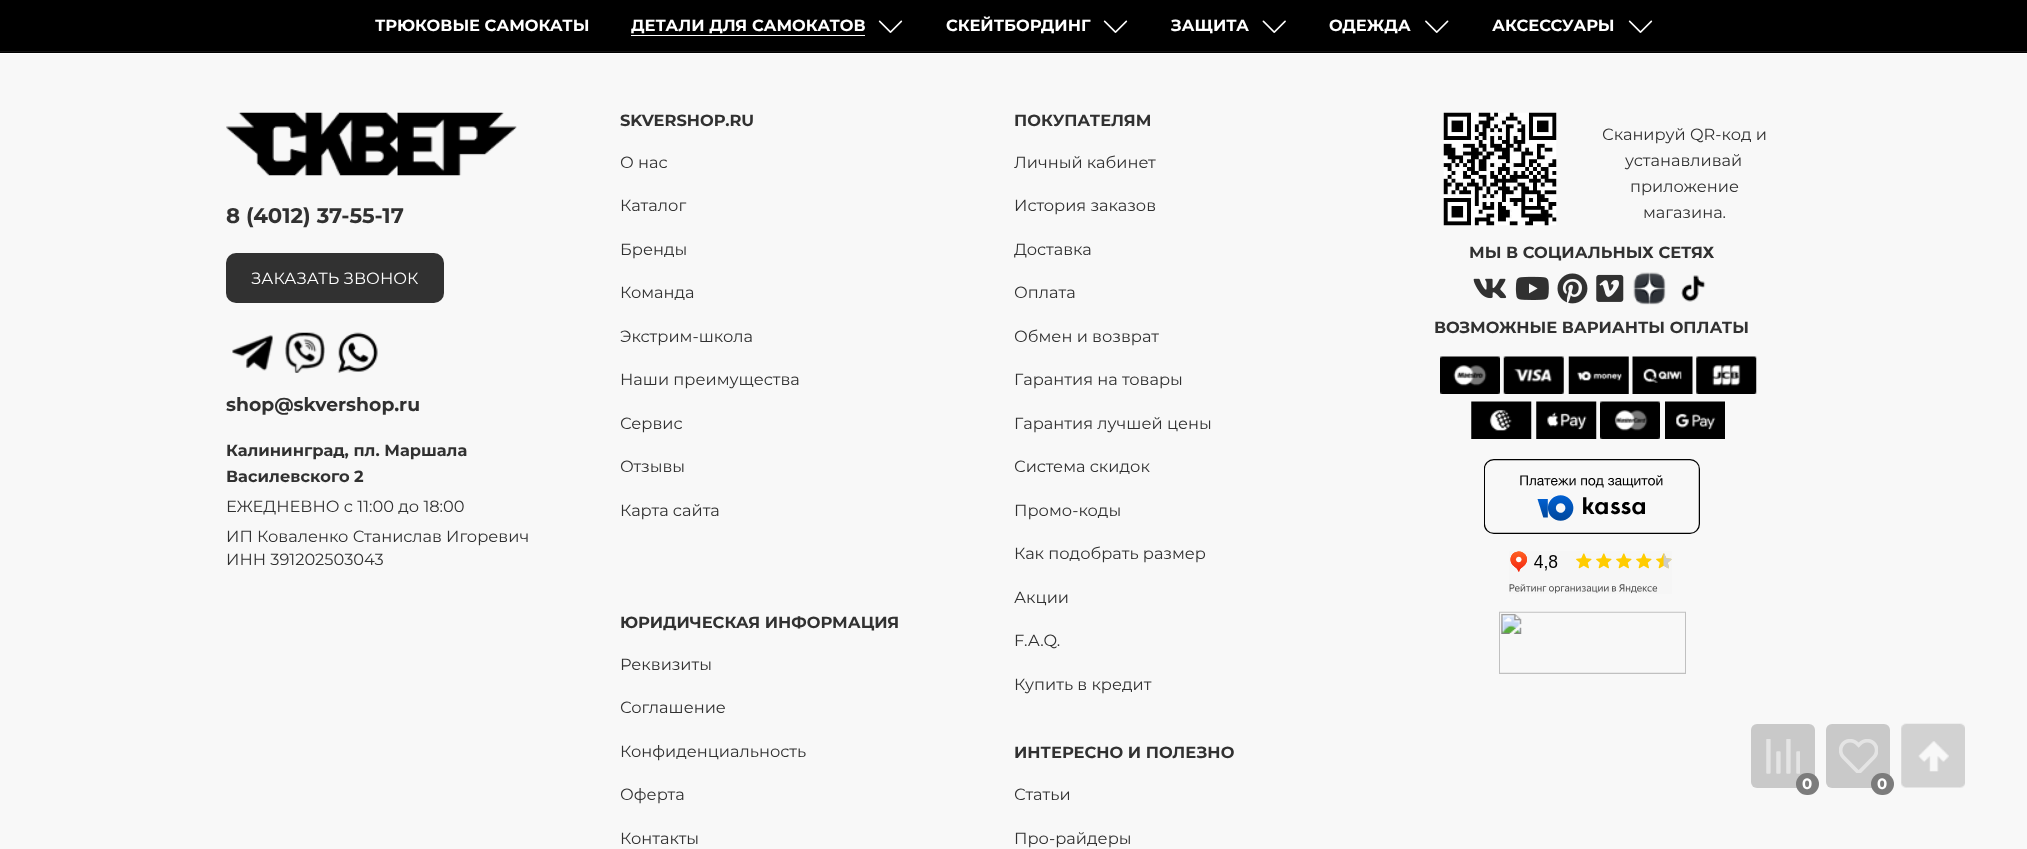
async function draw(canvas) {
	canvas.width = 2027;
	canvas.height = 849;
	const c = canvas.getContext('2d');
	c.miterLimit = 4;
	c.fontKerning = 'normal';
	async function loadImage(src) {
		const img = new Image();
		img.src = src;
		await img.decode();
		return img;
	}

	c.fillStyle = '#f8f8f8';
	c.fillRect(0, 0, 2027, 849);
	c.fillStyle = '#000';
	c.fillRect(0, 0, 2027, 53);
	c.fillStyle = '#fff';
	c.fillRect(0, 53, 2027, 1);
	c.font = 'bold 16.25px Montserrat';
	c.fillText('ТРЮКОВЫЕ САМОКАТЫ', 375, 31);
	c.fillText('ДЕТАЛИ ДЛЯ САМОКАТОВ', 631, 31);
	c.fillRect(631, 35, 234, 1);
	c.drawImage(await loadImage('img1.png'), 878, 20, 25, 13);
	c.fillText('СКЕЙТБОРДИНГ', 946, 31);
	c.drawImage(await loadImage('img1.png'), 1103, 20, 25, 13);
	c.fillText('ЗАЩИТА', 1171, 31);
	c.drawImage(await loadImage('img2.png'), 1262, 20, 24, 13);
	c.fillText('ОДЕЖДА', 1329, 31);
	c.drawImage(await loadImage('img3.png'), 1425, 20, 24, 13);
	c.fillText('АКСЕССУАРЫ', 1492, 31);
	c.drawImage(await loadImage('img1.png'), 1628, 20, 25, 13);
	c.fillStyle = '#131313';
	c.fillRect(0, 51, 2027, 1);
	c.drawImage(await loadImage('img4.png'), 226, 112, 291, 64);
	c.font = 'bold 21.25px Montserrat';
	c.fillStyle = '#313131';
	c.fillText('8 (4012) 37-55-17', 226, 223);
	c.beginPath();
	c.roundRect(226, 253, 218, 50, 10);
	c.fill();
	c.font = '16.25px Montserrat';
	c.fillStyle = '#fff';
	c.fillText('ЗАКАЗАТЬ ЗВОНОК', 251, 284);
	c.drawImage(await loadImage('img5.png'), 232, 335, 41, 36);
	c.drawImage(await loadImage('img6.png'), 285, 332, 40, 41);
	c.drawImage(await loadImage('img7.png'), 337, 332, 41, 41);
	c.font = 'bold 18.75px Montserrat';
	c.fillStyle = '#313131';
	c.fillText('shop@skvershop.ru', 226, 411);
	c.font = 'bold 16.25px Montserrat';
	c.fillText('Калининград, пл. Маршала', 226, 456);
	c.fillText('Василевского 2', 226, 482);
	c.font = '16.25px Montserrat';
	for (const [text, x, y] of [
		['ЕЖЕДНЕВНО с 11:00 до 18:00', 226, 512],
		['ИП Коваленко Станислав Игоревич', 226, 542],
		['ИНН 391202503043', 226, 565],
	]) {
		c.fillText(text, x, y);
	}
	c.font = 'bold 16.25px Montserrat';
	c.fillText('SKVERSHOP.RU', 620, 126);
	c.font = '16.25px Montserrat';
	for (const [text, x, y] of [
		['О нас', 620, 168],
		['Каталог', 620, 211],
		['Бренды', 620, 255],
		['Команда', 620, 298],
		['Экстрим-школа', 620, 342],
		['Наши преимущества', 620, 385],
		['Сервис', 620, 429],
		['Отзывы', 620, 472],
		['Карта сайта', 620, 516],
	]) {
		c.fillText(text, x, y);
	}
	c.font = 'bold 16.25px Montserrat';
	c.fillText('ЮРИДИЧЕСКАЯ ИНФОРМАЦИЯ', 620, 628);
	c.font = '16.25px Montserrat';
	for (const [text, x, y] of [
		['Реквизиты', 620, 670],
		['Соглашение', 620, 713],
		['Конфиденциальность', 620, 757],
		['Оферта', 620, 800],
		['Контакты', 620, 844],
	]) {
		c.fillText(text, x, y);
	}
	c.font = 'bold 16.25px Montserrat';
	c.fillText('ПОКУПАТЕЛЯМ', 1014, 126);
	c.font = '16.25px Montserrat';
	for (const [text, x, y] of [
		['Личный кабинет', 1014, 168],
		['История заказов', 1014, 211],
		['Доставка', 1014, 255],
		['Оплата', 1014, 298],
		['Обмен и возврат', 1014, 342],
		['Гарантия на товары', 1014, 385],
		['Гарантия лучшей цены', 1014, 429],
		['Система скидок', 1014, 472],
		['Промо-коды', 1014, 516],
		['Как подобрать размер', 1014, 559],
		['Акции', 1014, 603],
		['F.A.Q.', 1014, 646],
		['Купить в кредит', 1014, 690],
	]) {
		c.fillText(text, x, y);
	}
	c.font = 'bold 16.25px Montserrat';
	c.fillText('ИНТЕРЕСНО И ПОЛЕЗНО', 1014, 758);
	c.font = '16.25px Montserrat';
	c.fillText('Статьи', 1014, 800);
	c.fillText('Про-райдеры', 1014, 844);
	c.drawImage(await loadImage('img8.png'), 1443, 112, 114, 114);
	for (const [text, x, y] of [
		['Сканируй QR-код и', 1602, 140],
		['устанавливай', 1625, 166],
		['приложение', 1630, 192],
		['магазина.', 1643, 218],
	]) {
		c.fillText(text, x, y);
	}
	c.font = 'bold 16.25px Montserrat';
	c.fillText('МЫ В СОЦИАЛЬНЫХ СЕТЯХ', 1469, 258);
	c.drawImage(await loadImage('img9.png'), 1473, 278, 34, 21);
	c.drawImage(await loadImage('img10.png'), 1515, 276, 34, 24);
	c.drawImage(await loadImage('img11.png'), 1557, 273, 31, 31);
	c.drawImage(await loadImage('img12.png'), 1596, 274, 28, 28);
	c.drawImage(await loadImage('img13.png'), 1633, 272, 33, 33);
	c.drawImage(await loadImage('img14.png'), 1681, 275, 25, 27);
	c.fillText('ВОЗМОЖНЫЕ ВАРИАНТЫ ОПЛАТЫ', 1434, 333);
	c.drawImage(await loadImage('img15.png'), 1440, 356, 60, 38);
	c.drawImage(await loadImage('img16.png'), 1503, 356, 61, 38);
	c.drawImage(await loadImage('img17.png'), 1568, 356, 61, 38);
	c.drawImage(await loadImage('img18.png'), 1632, 356, 61, 38);
	c.drawImage(await loadImage('img19.png'), 1696, 356, 61, 38);
	c.drawImage(await loadImage('img20.png'), 1471, 401, 61, 38);
	c.drawImage(await loadImage('img21.png'), 1536, 401, 61, 38);
	c.drawImage(await loadImage('img22.png'), 1600, 401, 60, 38);
	c.drawImage(await loadImage('img23.png'), 1665, 401, 60, 38);
	c.drawImage(await loadImage('img24.png'), 1484, 459, 216, 75);
	c.drawImage(await loadImage('img25.png'), 1509, 551, 163, 43);
	c.drawImage(await loadImage('img26.png'), 1499, 611, 187, 63);
	c.fillStyle = '#c9c9c9';
	c.beginPath();
	c.roundRect(1751, 724, 64, 64, 6);
	c.fill();
	c.drawImage(await loadImage('img27.png'), 1766, 739, 34, 35);
	c.fillStyle = '#7c7c7c';
	c.beginPath();
	c.roundRect(1796, 773, 23, 22, 11);
	c.fill();
	c.font = 'bold 15px Montserrat';
	c.fillStyle = '#fff';
	c.fillText('0', 1802, 789);
	c.fillStyle = '#c9c9c9';
	c.beginPath();
	c.roundRect(1826, 724, 64, 64, 6);
	c.fill();
	c.drawImage(await loadImage('img28.png'), 1839, 739, 39, 34);
	c.fillStyle = '#7c7c7c';
	c.beginPath();
	c.roundRect(1871, 773, 23, 22, 11);
	c.fill();
	c.fillStyle = '#fff';
	c.fillText('0', 1877, 789);
	c.drawImage(await loadImage('img29.png'), 1901, 723, 64, 65);
}

draw(document.querySelector('canvas'));
